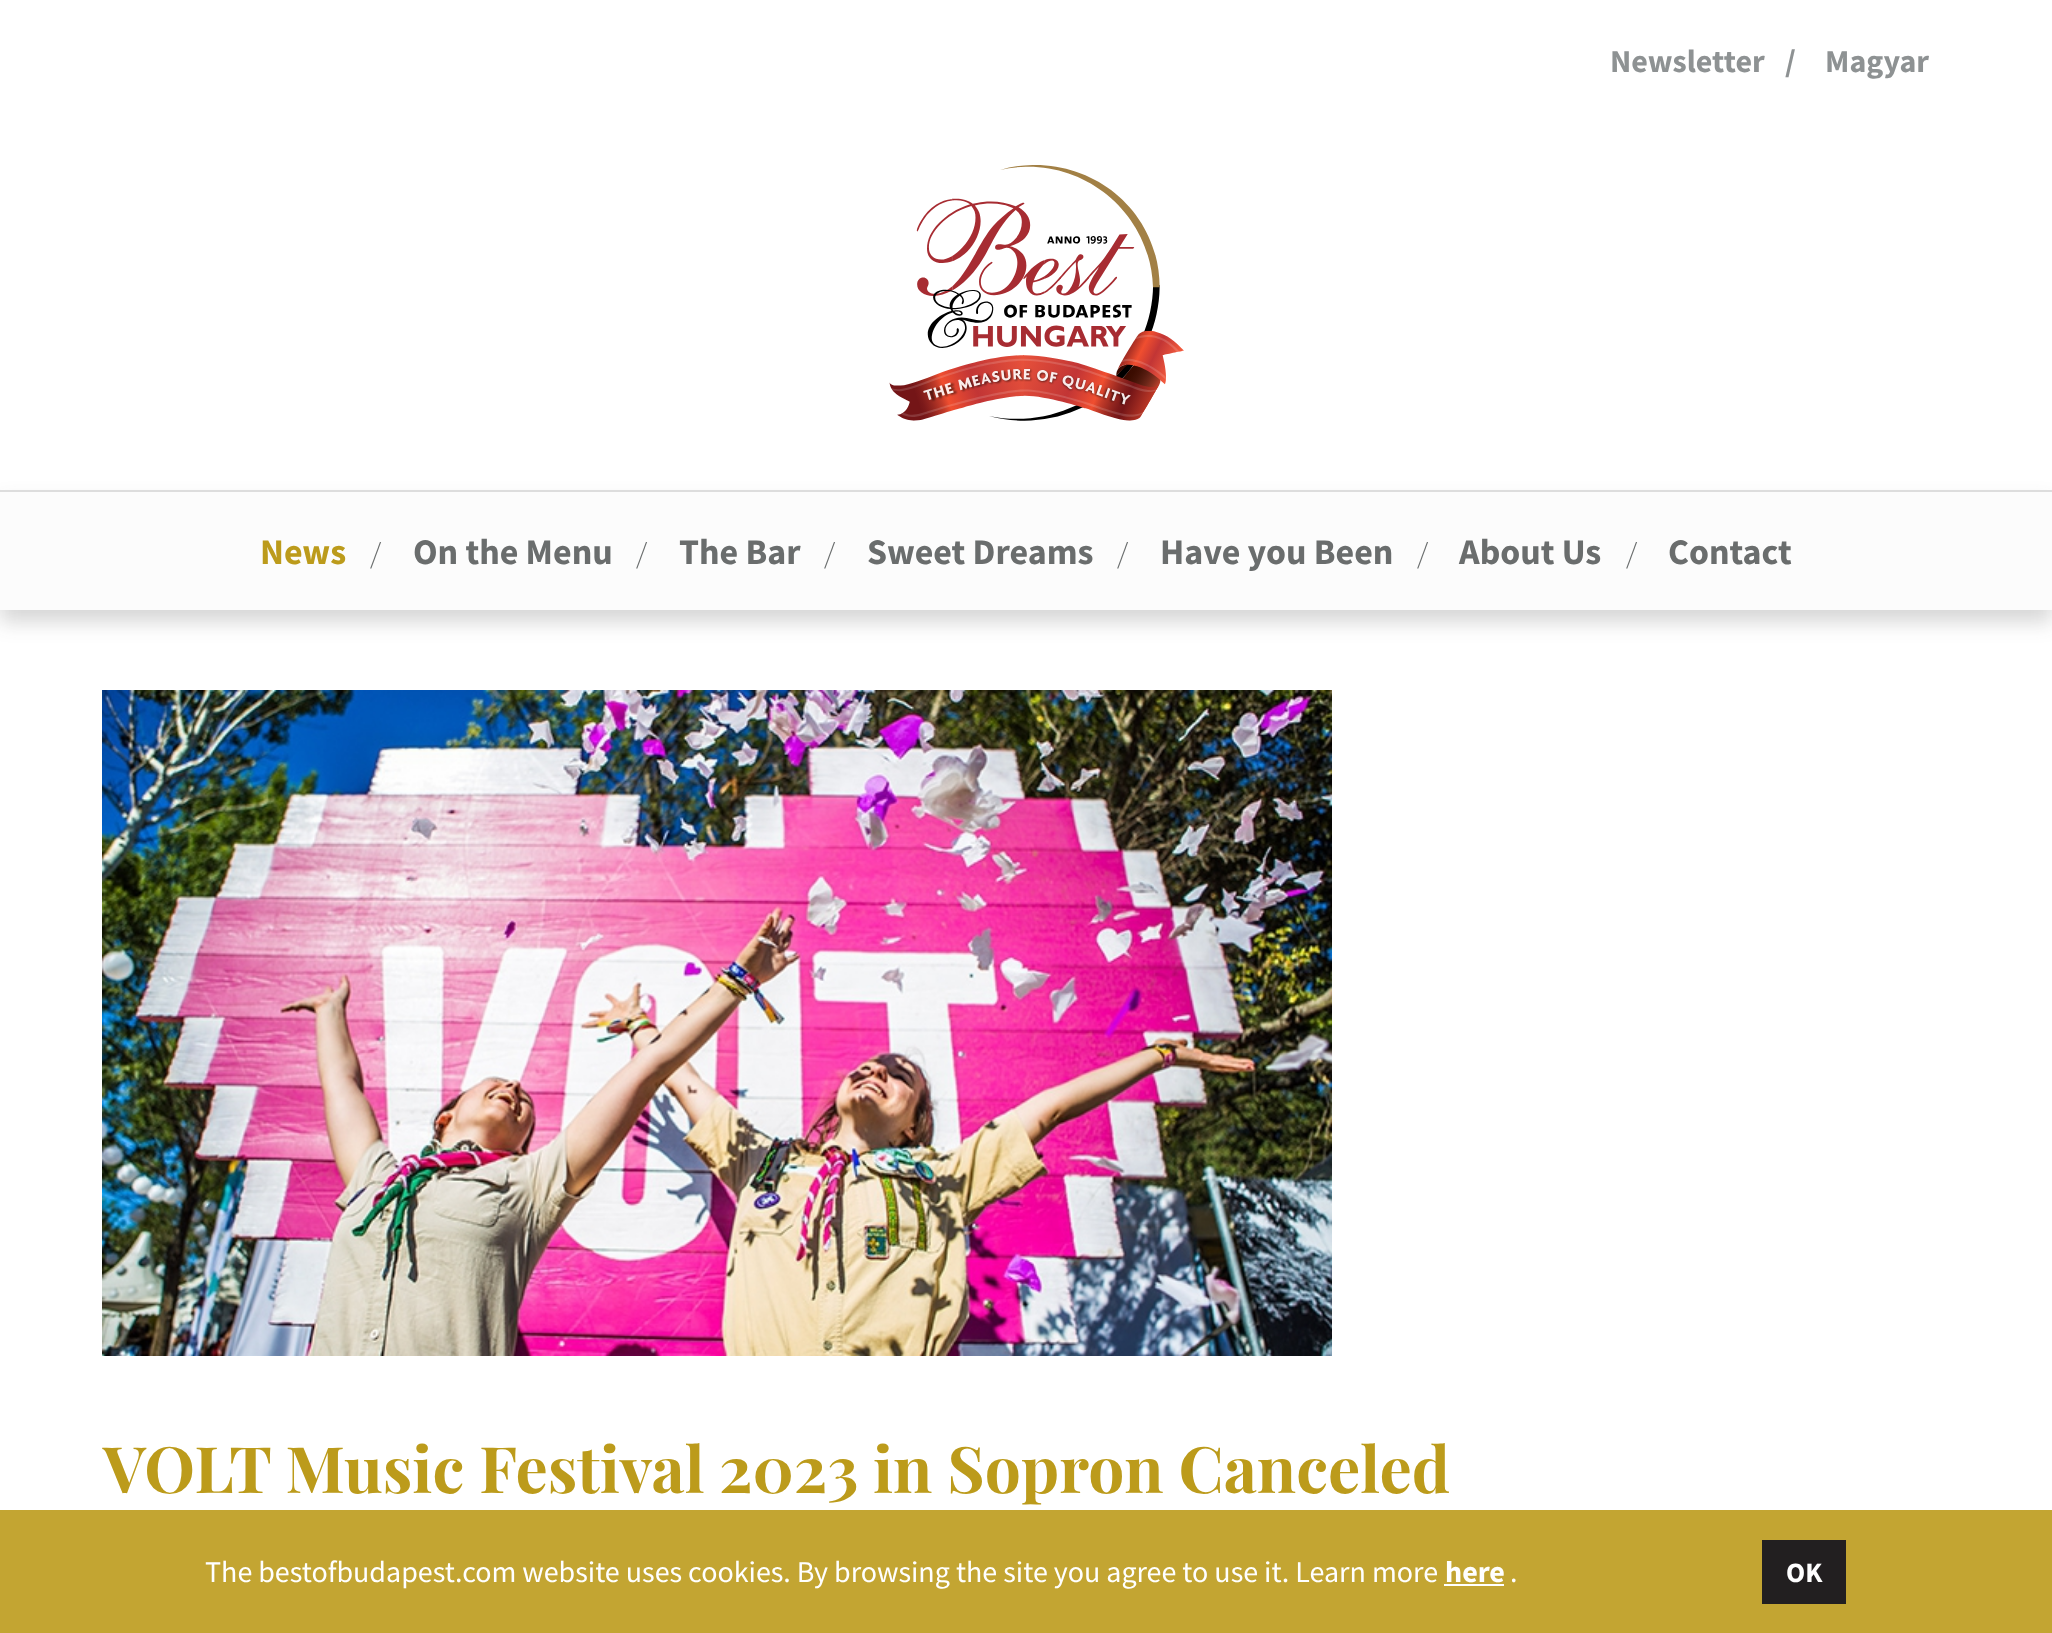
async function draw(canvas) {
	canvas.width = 2052;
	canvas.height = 1633;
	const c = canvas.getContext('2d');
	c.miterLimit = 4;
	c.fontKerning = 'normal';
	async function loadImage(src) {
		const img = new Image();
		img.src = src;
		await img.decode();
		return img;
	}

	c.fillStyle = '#fff';
	c.fillRect(0, 0, 2052, 1633);
	c.fillStyle = '#c3a532';
	c.fillRect(0, 1510, 2052, 123);
	c.font = 'bold 32px Source Sans Pro';
	c.fillStyle = '#8e9293';
	for (const [text, x, y] of [
		['Newsletter', 1610, 72],
		['/', 1785, 72],
		['Magyar', 1825, 72],
	]) {
		c.fillText(text, x, y);
	}
	c.drawImage(await loadImage('img1.png'), 889, 165, 295, 256);
	c.fillStyle = '#32323233';
	c.filter = 'blur(10px)';
	c.beginPath();
	c.rect(0, 502, 2052, 120);
	c.fill();
	c.filter = 'none';
	c.fillStyle = '#fcfcfc';
	c.fillRect(0, 492, 2052, 118);
	c.fillStyle = '#ddd';
	c.fillRect(0, 490, 2052, 2);
	c.font = 'bold 36px Source Sans Pro';
	c.fillStyle = '#bc9b1b';
	c.fillText('News', 260, 564);
	c.font = 'bold 36px Playfair Display';
	c.fillStyle = '#6a6d6d';
	c.fillText('/', 369, 568);
	c.font = 'bold 36px Source Sans Pro';
	c.fillText('On the Menu', 413, 564);
	c.font = 'bold 36px Playfair Display';
	c.fillText('/', 635, 568);
	c.font = 'bold 36px Source Sans Pro';
	c.fillText('The Bar', 679, 564);
	c.font = 'bold 36px Playfair Display';
	c.fillText('/', 823, 568);
	c.font = 'bold 36px Source Sans Pro';
	c.fillText('Sweet Dreams', 867, 564);
	c.font = 'bold 36px Playfair Display';
	c.fillText('/', 1116, 568);
	c.font = 'bold 36px Source Sans Pro';
	c.fillText('Have you Been', 1160, 564);
	c.font = 'bold 36px Playfair Display';
	c.fillText('/', 1416, 568);
	c.font = 'bold 36px Source Sans Pro';
	c.fillText('About Us', 1459, 564);
	c.font = 'bold 36px Playfair Display';
	c.fillText('/', 1625, 568);
	c.font = 'bold 36px Source Sans Pro';
	c.fillText('Contact', 1668, 564);
	c.drawImage(await loadImage('img2.png'), 102, 690, 1230, 666);
	c.font = 'bold 64px Playfair Display';
	c.fillStyle = '#bc9b1b';
	c.fillText('VOLT Music Festival 2023 in Sopron Canceled', 103, 1493);
	c.font = '30px Source Sans Pro';
	c.fillStyle = '#fff';
	c.fillText('The bestofbudapest.com website uses cookies. By browsing the site you agree to use it. Learn more', 205, 1582);
	c.font = 'bold 30px Source Sans Pro';
	c.fillText('here', 1445, 1582);
	c.fillRect(1444, 1584, 60, 2);
	c.font = '30px Source Sans Pro';
	c.fillText('.', 1510, 1582);
	c.fillStyle = '#221f20';
	c.fillRect(1762, 1540, 84, 64);
	c.font = 'bold 28px Source Sans Pro';
	c.fillStyle = '#fff';
	c.fillText('OK', 1786, 1582);
}

draw(document.querySelector('canvas'));
